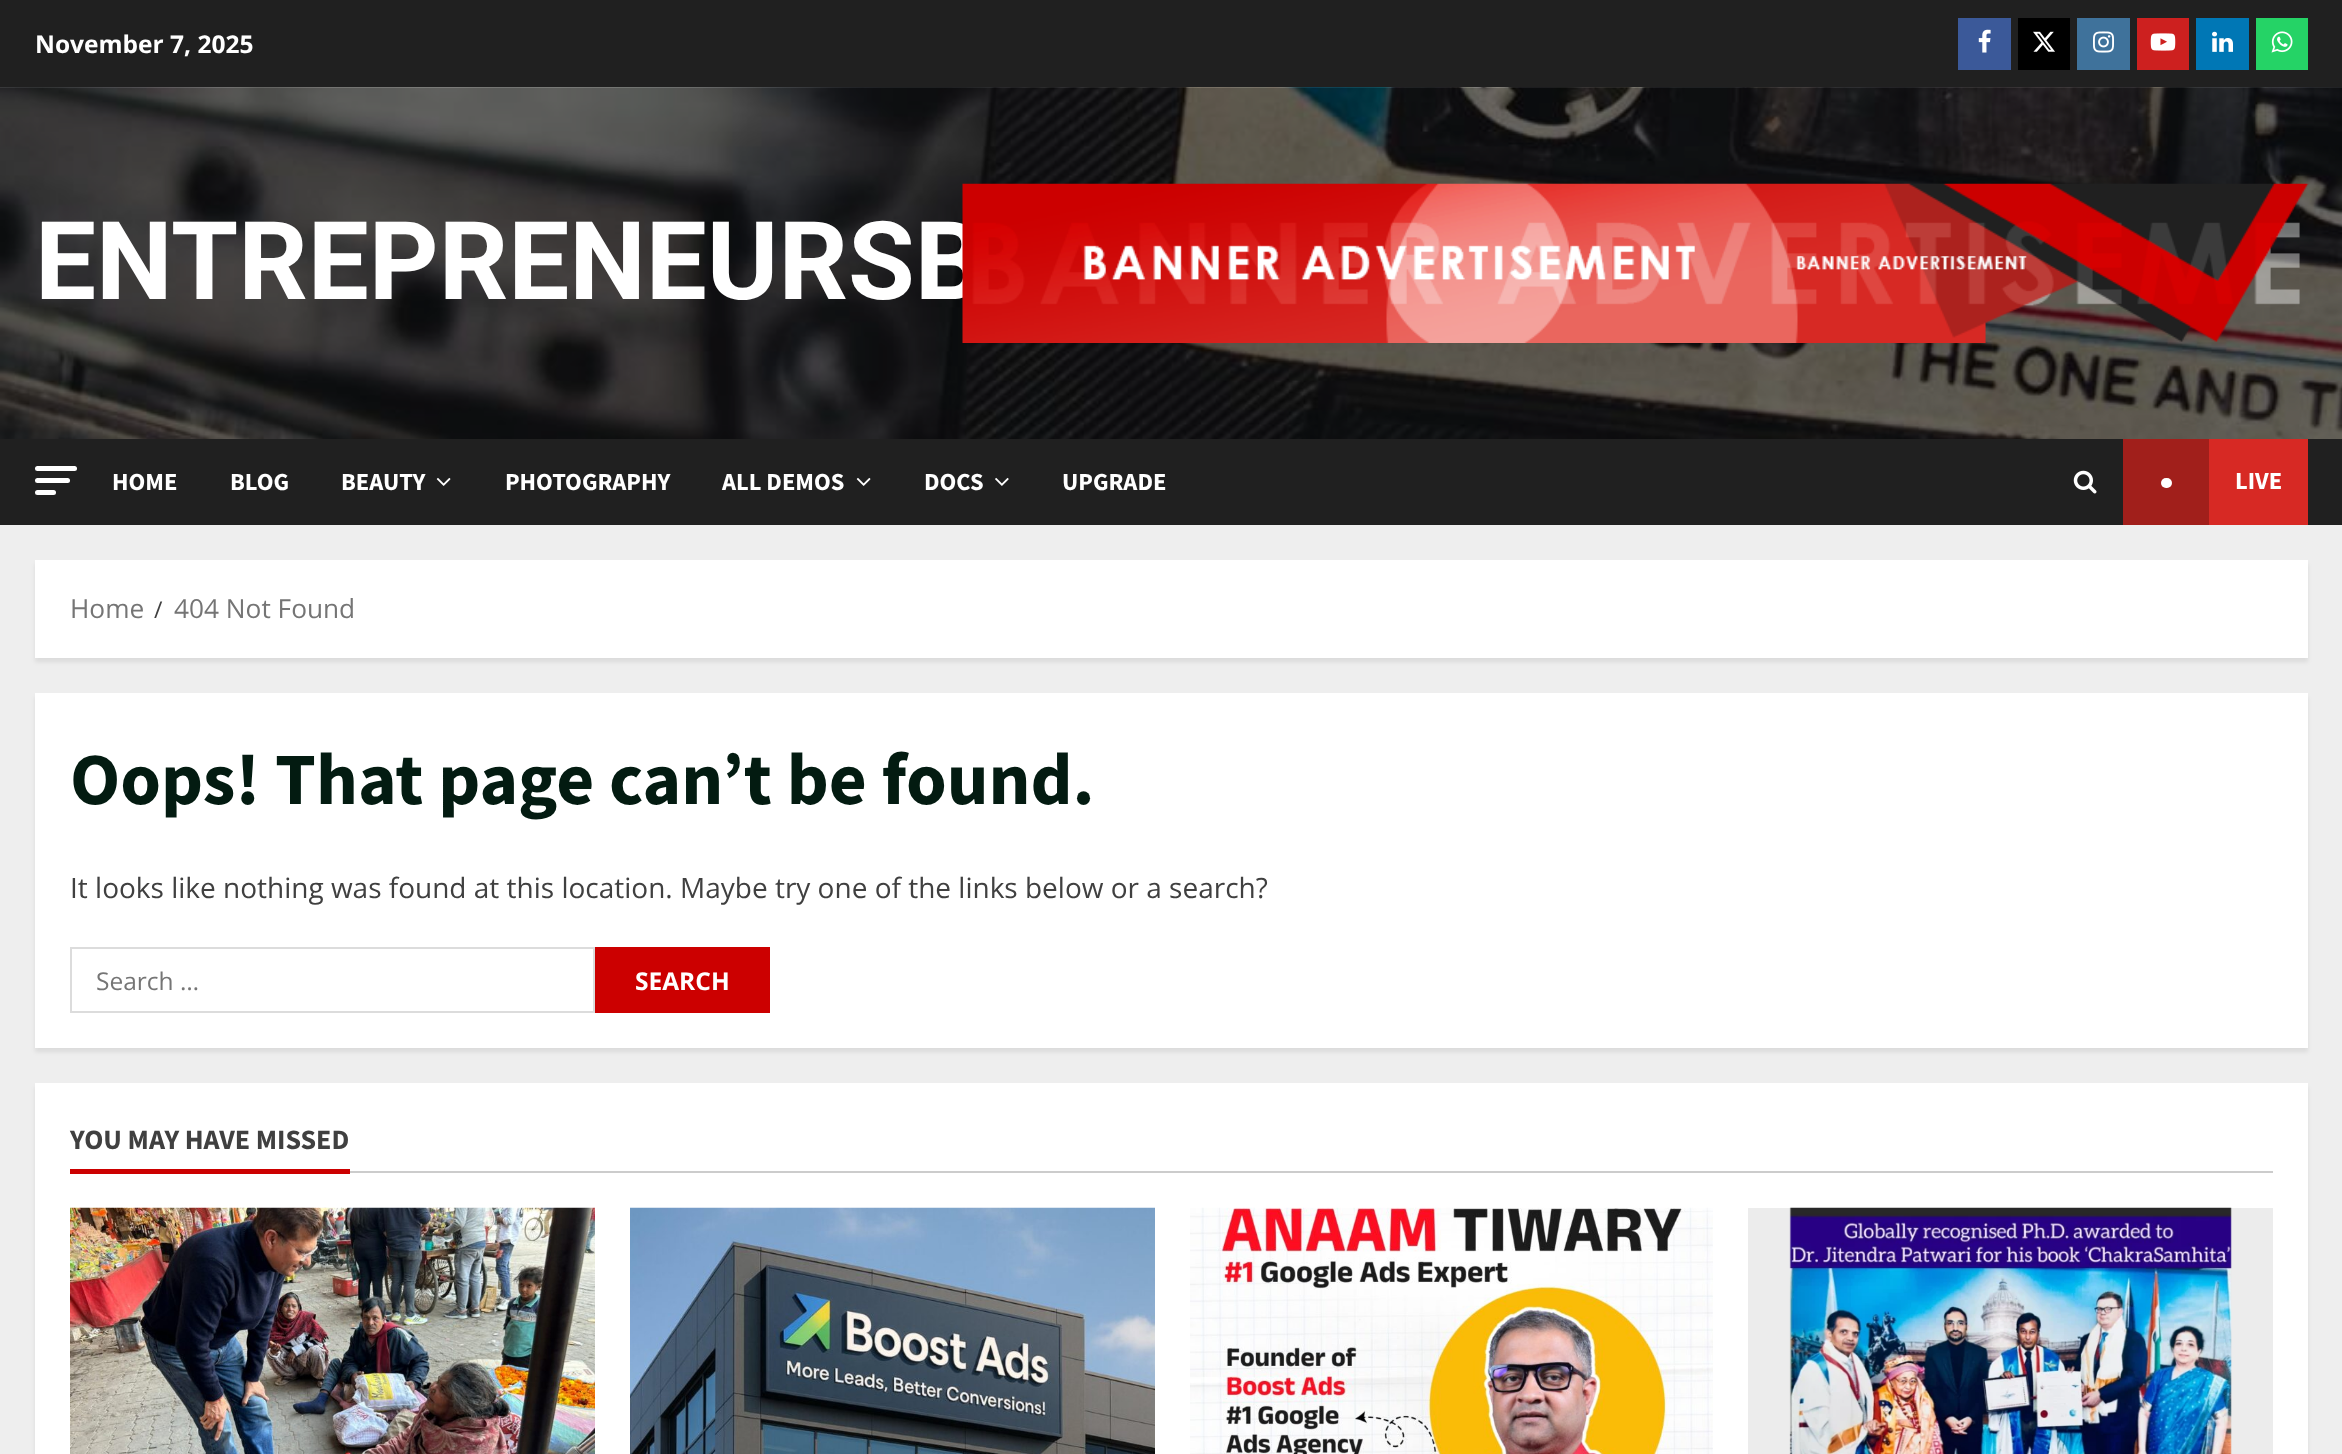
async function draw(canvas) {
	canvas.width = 2342;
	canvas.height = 1454;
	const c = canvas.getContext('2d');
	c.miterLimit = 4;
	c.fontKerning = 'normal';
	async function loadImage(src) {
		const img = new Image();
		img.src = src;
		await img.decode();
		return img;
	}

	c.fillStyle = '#eee';
	c.fillRect(0, 0, 2342, 1454);
	c.fillStyle = '#202020';
	c.fillRect(0, 0, 2342, 88);
	c.font = 'bold 24.5px Open Sans';
	c.fillStyle = '#fff';
	c.fillText('November 7, 2025', 35, 53);
	c.fillStyle = '#3b5999';
	c.fillRect(1958, 18, 53, 52);
	c.drawImage(await loadImage('img1.png'), 1978, 29, 13, 24);
	c.fillStyle = '#000';
	c.fillRect(2018, 18, 52, 52);
	c.drawImage(await loadImage('img2.png'), 2033, 31, 22, 21);
	c.fillStyle = '#3f729b';
	c.fillRect(2077, 18, 53, 52);
	c.drawImage(await loadImage('img3.png'), 2093, 31, 21, 22);
	c.fillStyle = '#cd201f';
	c.fillRect(2137, 18, 52, 52);
	c.drawImage(await loadImage('img4.png'), 2150, 33, 26, 18);
	c.fillStyle = '#0077b5';
	c.fillRect(2196, 18, 53, 52);
	c.drawImage(await loadImage('img5.png'), 2212, 31, 21, 21);
	c.fillStyle = '#25d366';
	c.fillRect(2256, 18, 52, 52);
	c.drawImage(await loadImage('img6.png'), 2271, 31, 22, 22);
	c.drawImage(await loadImage('img7.png'), 0, 87, 2342, 352);
	c.font = 'bold 108.5px Roboto';
	c.fillStyle = '#fff';
	c.fillText('ENTREPRENEURSB', 35, 299);
	c.drawImage(await loadImage('img8.png'), 962, 183, 1347, 160);
	c.fillStyle = '#202020';
	c.fillRect(0, 439, 2342, 86);
	c.fillStyle = '#fff';
	c.beginPath();
	c.roundRect(35, 466, 42, 5, 2.5);
	c.fill();
	c.beginPath();
	c.roundRect(35, 478, 35, 5, 2.5);
	c.fill();
	c.beginPath();
	c.roundRect(35, 490, 21, 5, 2.5);
	c.fill();
	c.font = 'bold 24.5px Source Sans Pro';
	for (const [text, x, y] of [
		['HOME', 112, 490],
		['BLOG', 230, 490],
		['BEAUTY', 341, 490],
	]) {
		c.fillText(text, x, y);
	}
	c.drawImage(await loadImage('img9.png'), 436, 477, 15, 9);
	c.fillText('PHOTOGRAPHY', 505, 490);
	c.fillText('ALL DEMOS', 722, 490);
	c.drawImage(await loadImage('img9.png'), 856, 477, 15, 9);
	c.fillText('DOCS', 924, 490);
	c.drawImage(await loadImage('img10.png'), 995, 477, 14, 9);
	c.fillText('UPGRADE', 1062, 490);
	c.drawImage(await loadImage('img11.png'), 2073, 470, 24, 24);
	c.fillStyle = '#d72924';
	c.fillRect(2209, 439, 99, 86);
	c.fillStyle = '#a11f1b';
	c.fillRect(2123, 439, 86, 86);
	c.fillStyle = '#fff';
	c.beginPath();
	c.roundRect(2161, 478, 11, 10, 5);
	c.fill();
	c.fillText('LIVE', 2235, 489);
	c.fillStyle = '#00000014';
	c.filter = 'blur(2px)';
	c.beginPath();
	c.rect(35, 564, 2273, 98);
	c.fill();
	c.filter = 'none';
	c.fillStyle = '#fff';
	c.fillRect(35, 560, 2273, 98);
	c.font = '26.25px Open Sans';
	c.fillStyle = '#757575';
	c.fillText('Home', 70, 618);
	c.font = '23px Open Sans';
	c.fillStyle = '#404040';
	c.fillText('/', 154, 618);
	c.font = '26.25px Open Sans';
	c.fillStyle = '#757575';
	c.fillText('404 Not Found', 174, 618);
	c.fillStyle = '#00000014';
	c.filter = 'blur(2px)';
	c.beginPath();
	c.rect(35, 697, 2273, 355);
	c.fill();
	c.filter = 'none';
	c.fillStyle = '#fff';
	c.fillRect(35, 693, 2273, 355);
	c.font = 'bold 73.5px Source Sans Pro';
	c.fillStyle = '#031b11';
	c.fillText('Oops! That page can’t be found.', 70, 804);
	c.font = '28px Open Sans';
	c.fillStyle = '#404040';
	c.fillText('It looks like nothing was found at this location. Maybe try one of the links below or a search?', 70, 898);
	c.strokeStyle = '#dcdcdc';
	c.lineWidth = 2;
	c.strokeRect(71, 948, 523, 64);
	c.font = '24.5px Open Sans';
	c.fillStyle = '#757575';
	c.fillText('Search …', 96, 990);
	c.fillStyle = '#c00';
	c.fillRect(595, 947, 175, 66);
	c.font = 'bold 24.5px Open Sans';
	c.fillStyle = '#fff';
	c.fillText('SEARCH', 635, 990);
	c.fillStyle = '#00000014';
	c.filter = 'blur(2px)';
	c.beginPath();
	c.rect(35, 1087, 2273, 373);
	c.fill();
	c.filter = 'none';
	c.fillStyle = '#fff';
	c.fillRect(35, 1083, 2273, 371);
	c.fillStyle = '#ccc';
	c.fillRect(350, 1171, 1923, 2);
	c.font = 'bold 28px Source Sans Pro';
	c.fillStyle = '#404040';
	c.fillText('YOU MAY HAVE MISSED', 70, 1149);
	c.fillStyle = '#c00';
	c.fillRect(70, 1169, 280, 5);
	c.drawImage(await loadImage('img12.png'), 70, 1207, 525, 247);
	c.drawImage(await loadImage('img13.png'), 630, 1207, 525, 247);
	c.drawImage(await loadImage('img14.png'), 1190, 1207, 523, 247);
	c.fillStyle = '#ececec';
	c.fillRect(1748, 1208, 525, 246);
	c.drawImage(await loadImage('img15.png'), 1789, 1207, 443, 247);
}

draw(document.querySelector('canvas'));
